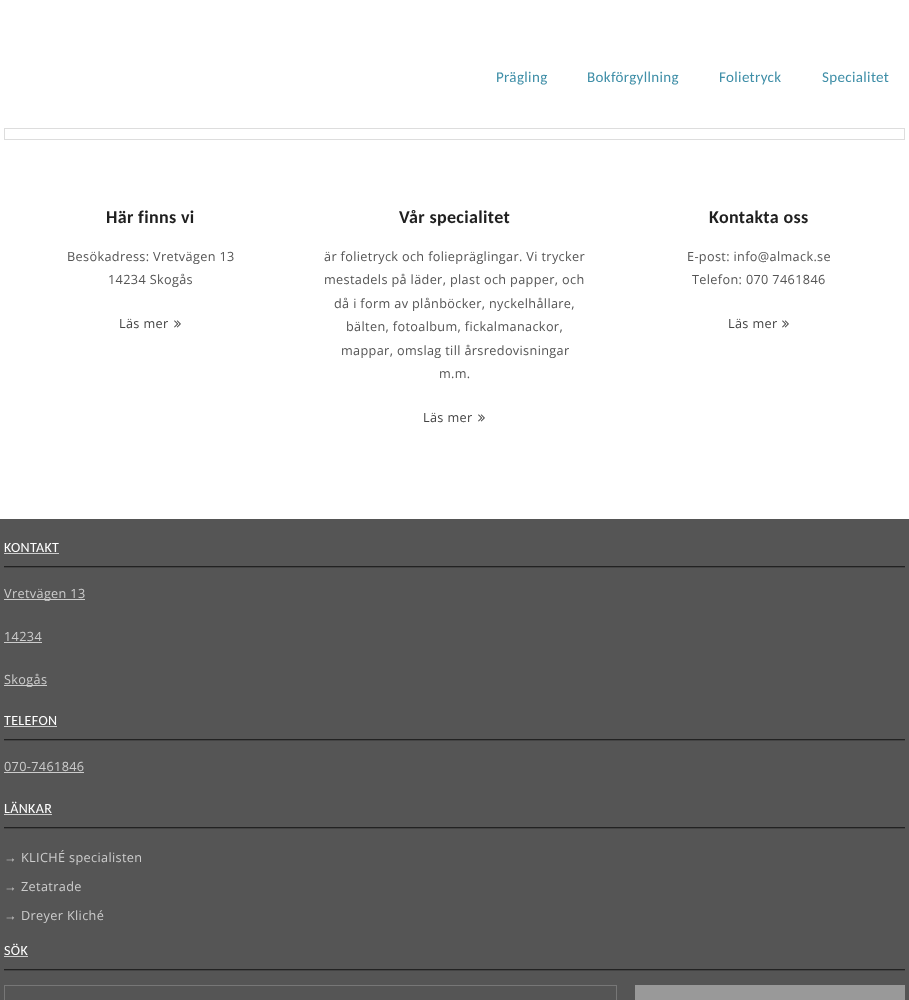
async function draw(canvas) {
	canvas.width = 909;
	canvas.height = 1000;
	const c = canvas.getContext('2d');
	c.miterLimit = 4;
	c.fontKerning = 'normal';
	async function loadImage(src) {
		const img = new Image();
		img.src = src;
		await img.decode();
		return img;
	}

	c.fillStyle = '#fff';
	c.fillRect(0, 0, 909, 1000);
	c.letterSpacing = '0.35px';
	c.font = '15px Carlito';
	c.fillStyle = '#408fa8';
	for (const [text, x, y] of [
		['Prägling', 496, 82],
		['Bokförgyllning', 587, 82],
		['Folietryck', 719, 82],
		['Specialitet', 822, 82],
	]) {
		c.fillText(text, x, y);
	}
	c.fillStyle = '#ddd';
	c.fillRect(4, 128, 901, 12);
	c.fillStyle = '#fff';
	c.fillRect(5, 129, 899, 10);
	c.font = 'bold 18px Carlito';
	c.fillStyle = '#202020';
	c.fillText('Här finns vi', 106, 223);
	c.font = '12.7px Open Sans';
	c.fillStyle = '#555';
	c.fillText('Besökadress: Vretvägen 13', 67, 261);
	c.fillText('14234 Skogås', 108, 284);
	c.fillStyle = '#444';
	c.fillText('Läs mer', 119, 328);
	c.drawImage(await loadImage('img1.png'), 174, 320, 7, 8);
	c.font = 'bold 18px Carlito';
	c.fillStyle = '#202020';
	c.fillText('Vår specialitet', 399, 223);
	c.font = '12.7px Open Sans';
	c.fillStyle = '#555';
	for (const [text, x, y] of [
		['är folietryck och foliepräglingar. Vi trycker', 324, 261],
		['mestadels på läder, plast och papper, och', 324, 284],
		['då i form av plånböcker, nyckelhållare,', 334, 308],
		['bälten, fotoalbum, fickalmanackor,', 346, 331],
		['mappar, omslag till årsredovisningar', 341, 355],
		['m.m.', 439, 378],
	]) {
		c.fillText(text, x, y);
	}
	c.fillStyle = '#444';
	c.fillText('Läs mer', 423, 422);
	c.drawImage(await loadImage('img1.png'), 478, 414, 7, 8);
	c.font = 'bold 18px Carlito';
	c.fillStyle = '#202020';
	c.fillText('Kontakta oss', 709, 223);
	c.font = '12.7px Open Sans';
	c.fillStyle = '#555';
	c.fillText('E-post: info@almack.se', 687, 261);
	c.fillText('Telefon: 070 7461846', 692, 284);
	c.fillStyle = '#444';
	c.fillText('Läs mer', 728, 328);
	c.drawImage(await loadImage('img1.png'), 782, 320, 7, 8);
	for (const [x, y, w, h, color] of [
		[0, 519, 909, 481, '#555'],
		[4, 567, 901, 1, '#444'],
		[4, 566, 901, 1, '#222'],
	]) {
		c.fillStyle = color;
		c.fillRect(x, y, w, h);
	}
	c.font = '14px Carlito';
	c.fillStyle = '#fff';
	c.fillText('KONTAKT', 4, 552);
	c.fillStyle = '#ccc';
	c.fillRect(4, 553, 55, 1);
	c.fillRect(4, 599, 81, 1);
	c.font = '12.7px Open Sans';
	c.fillText('Vretvägen 13', 4, 598);
	c.fillText('14234', 4, 641);
	c.fillRect(4, 642, 38, 1);
	c.fillRect(4, 685, 43, 1);
	c.fillText('Skogås', 4, 684);
	c.fillStyle = '#444';
	c.fillRect(4, 740, 901, 1);
	c.fillStyle = '#222';
	c.fillRect(4, 739, 901, 1);
	c.font = '14px Carlito';
	c.fillStyle = '#fff';
	c.fillText('TELEFON', 4, 725);
	c.fillStyle = '#ccc';
	c.fillRect(4, 726, 53, 1);
	c.font = '12.7px Open Sans';
	c.fillText('070-7461846', 4, 771);
	for (const [x, y, w, h, color] of [
		[4, 772, 80, 1, '#ccc'],
		[4, 828, 901, 1, '#444'],
		[4, 827, 901, 1, '#222'],
	]) {
		c.fillStyle = color;
		c.fillRect(x, y, w, h);
	}
	c.font = '14px Carlito';
	c.fillStyle = '#fff';
	c.fillText('LÄNKAR', 4, 813);
	c.fillStyle = '#ccc';
	c.fillRect(4, 814, 48, 1);
	c.font = '12.7px Liberation Sans';
	c.fillText('→', 4, 862);
	c.font = '12.7px Open Sans';
	c.fillText('KLICHÉ specialisten', 21, 862);
	c.font = '12.7px Liberation Sans';
	c.fillText('→', 4, 891);
	c.font = '12.7px Open Sans';
	c.fillText('Zetatrade', 21, 891);
	c.font = '12.7px Liberation Sans';
	c.fillText('→', 4, 920);
	c.font = '12.7px Open Sans';
	c.fillText('Dreyer Kliché', 21, 920);
	c.fillStyle = '#444';
	c.fillRect(4, 970, 901, 1);
	c.fillStyle = '#222';
	c.fillRect(4, 969, 901, 1);
	c.font = '14px Carlito';
	c.fillStyle = '#fff';
	c.fillText('SÖK', 4, 955);
	c.fillStyle = '#ccc';
	c.fillRect(4, 956, 24, 1);
	c.strokeStyle = '#777';
	c.strokeRect(4.5, 985.5, 612, 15);
	c.fillStyle = '#999';
	c.fillRect(635, 985, 270, 15);
}

draw(document.querySelector('canvas'));
